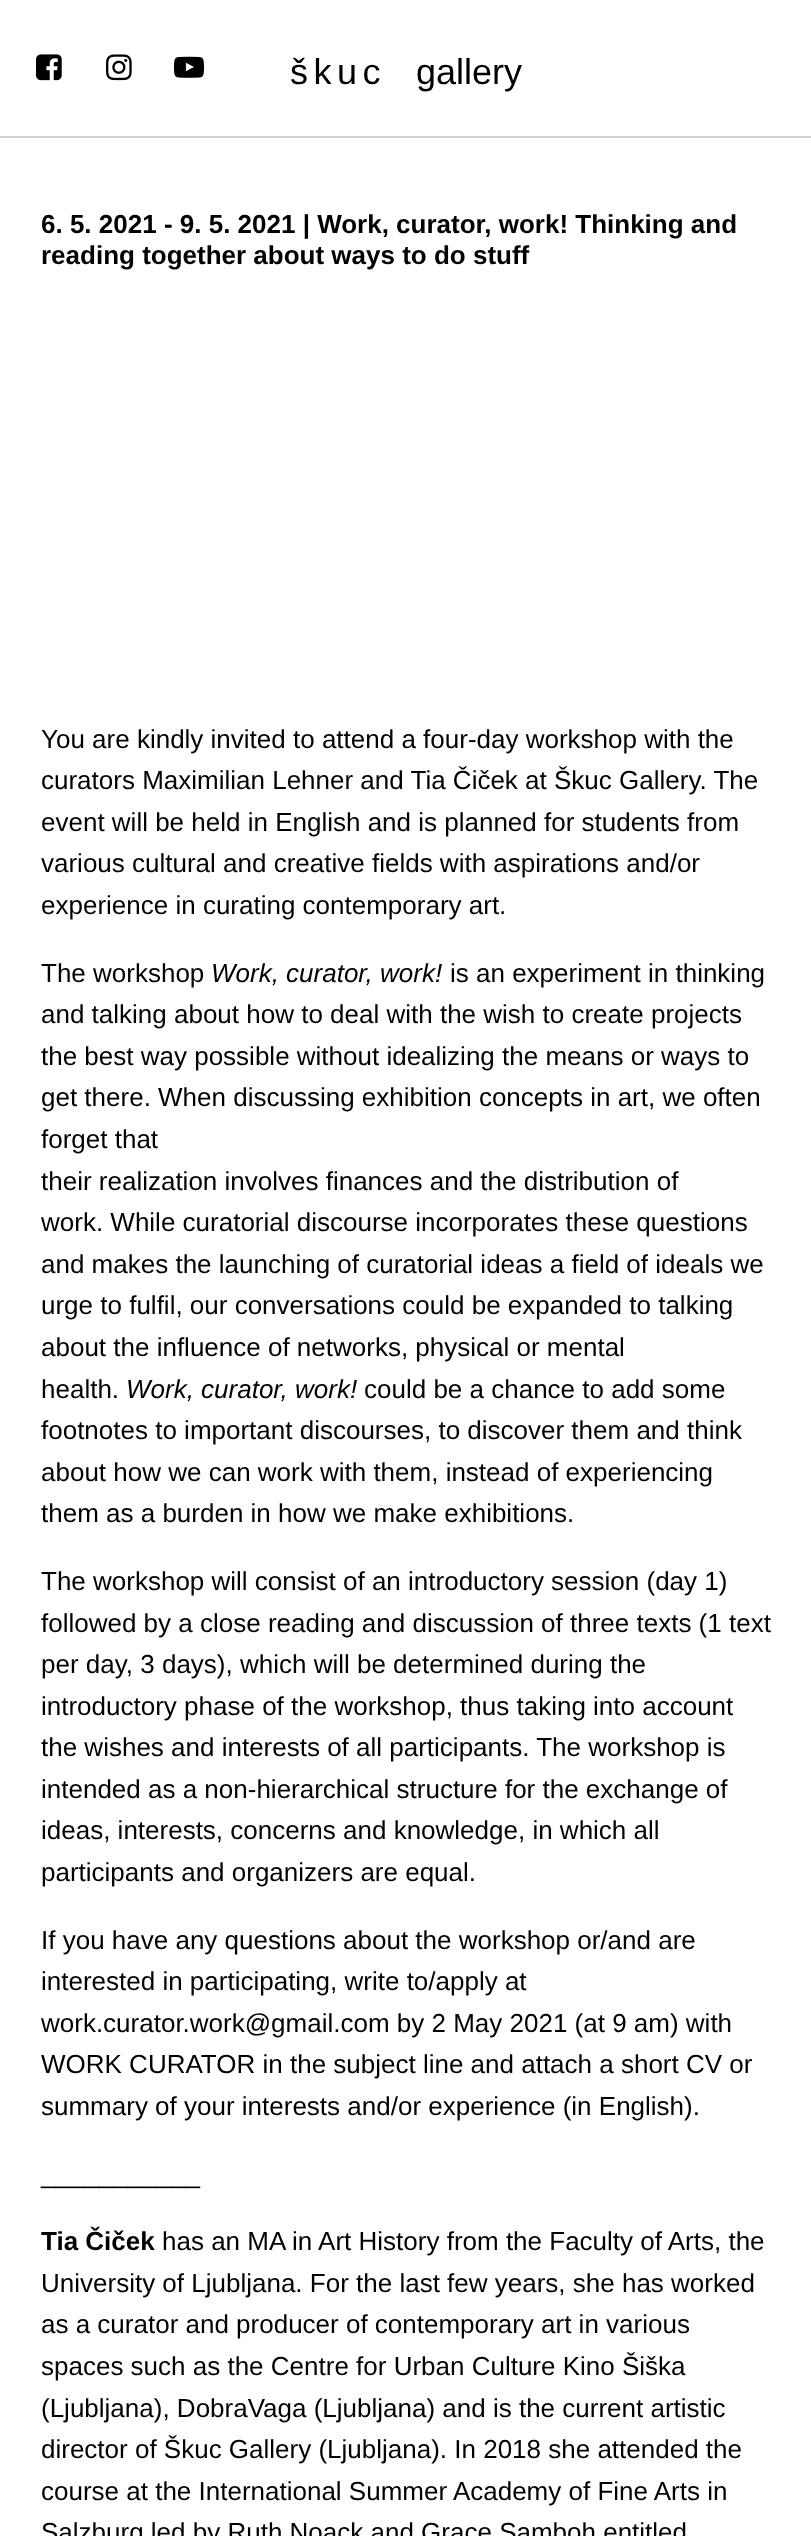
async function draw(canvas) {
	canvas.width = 811;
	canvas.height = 2536;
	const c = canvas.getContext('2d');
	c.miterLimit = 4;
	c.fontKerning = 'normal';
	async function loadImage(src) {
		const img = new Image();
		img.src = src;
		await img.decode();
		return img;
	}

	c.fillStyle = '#fff';
	c.fillRect(0, 0, 811, 2536);
	c.fillStyle = '#d3d3d3';
	c.fillRect(0, 136, 811, 2);
	c.drawImage(await loadImage('img1.png'), 36, 54, 26, 27);
	c.drawImage(await loadImage('img2.png'), 106, 54, 26, 27);
	c.drawImage(await loadImage('img3.png'), 174, 56, 30, 22);
	c.letterSpacing = '5.5px';
	c.font = '36px Liberation Sans';
	c.fillStyle = '#000';
	c.fillText('škuc', 290, 84);
	c.letterSpacing = '0px';
	c.fillText('gallery', 416, 84);
	c.font = 'bold 26px Liberation Sans';
	c.fillText('6. 5. 2021 - 9. 5. 2021 | Work, curator, work! Thinking and', 41, 233);
	c.fillText('reading together about ways to do stuff', 41, 264);
	c.font = '26px Liberation Sans';
	for (const [text, x, y] of [
		['You are kindly invited to attend a four-day workshop with the', 41, 748],
		['curators Maximilian Lehner and Tia Čiček at Škuc Gallery. The', 41, 789],
		['event will be held in English and is planned for students from', 41, 831],
		['various cultural and creative fields with aspirations and/or', 41, 872],
		['experience in curating contemporary art.', 41, 914],
		['The workshop', 41, 982],
	]) {
		c.fillText(text, x, y);
	}
	c.font = 'italic 26px Liberation Sans';
	c.fillText('Work, curator, work!', 211, 982);
	c.font = '26px Liberation Sans';
	for (const [text, x, y] of [
		['is an experiment in thinking', 450, 982],
		['and talking about how to deal with the wish to create projects', 41, 1023],
		['the best way possible without idealizing the means or ways to', 41, 1065],
		['get there. When discussing exhibition concepts in art, we often', 41, 1106],
		['forget that', 41, 1148],
		['their realization involves finances and the distribution of', 41, 1190],
		['work. While curatorial discourse incorporates these questions', 41, 1231],
		['and makes the launching of curatorial ideas a field of ideals we', 41, 1273],
		['urge to fulfil, our conversations could be expanded to talking', 41, 1314],
		['about the influence of networks, physical or mental', 41, 1356],
		['health.', 41, 1398],
	]) {
		c.fillText(text, x, y);
	}
	c.font = 'italic 26px Liberation Sans';
	c.fillText('Work, curator, work!', 126, 1398);
	c.font = '26px Liberation Sans';
	for (const [text, x, y] of [
		['could be a chance to add some', 364, 1398],
		['footnotes to important discourses, to discover them and think', 41, 1439],
		['about how we can work with them, instead of experiencing', 41, 1481],
		['them as a burden in how we make exhibitions.', 41, 1522],
		['The workshop will consist of an introductory session (day 1)', 41, 1590],
		['followed by a close reading and discussion of three texts (1 text', 41, 1632],
		['per day, 3 days), which will be determined during the', 41, 1673],
		['introductory phase of the workshop, thus taking into account', 41, 1715],
		['the wishes and interests of all participants. The workshop is', 41, 1756],
		['intended as a non-hierarchical structure for the exchange of', 41, 1798],
		['ideas, interests, concerns and knowledge, in which all', 41, 1839],
		['participants and organizers are equal.', 41, 1881],
		['If you have any questions about the workshop or/and are', 41, 1949],
		['interested in participating, write to/apply at', 41, 1990],
		['work.curator.work@gmail.com by 2 May 2021 (at 9 am) with', 41, 2032],
		['WORK CURATOR in the subject line and attach a short CV or', 41, 2073],
		['summary of your interests and/or experience (in English).', 41, 2115],
		['___________', 41, 2183],
	]) {
		c.fillText(text, x, y);
	}
	c.font = 'bold 26px Liberation Sans';
	c.fillText('Tia Čiček', 41, 2250);
	c.font = '26px Liberation Sans';
	for (const [text, x, y] of [
		['has an MA in Art History from the Faculty of Arts, the', 162, 2250],
		['University of Ljubljana. For the last few years, she has worked', 41, 2292],
		['as a curator and producer of contemporary art in various', 41, 2333],
		['spaces such as the Centre for Urban Culture Kino Šiška', 41, 2375],
		['(Ljubljana), DobraVaga (Ljubljana) and is the current artistic', 41, 2417],
		['director of Škuc Gallery (Ljubljana). In 2018 she attended the', 41, 2458],
		['course at the International Summer Academy of Fine Arts in', 41, 2500],
		['Salzburg led by Ruth Noack and Grace Samboh entitled', 41, 2541],
	]) {
		c.fillText(text, x, y);
	}
}

draw(document.querySelector('canvas'));
